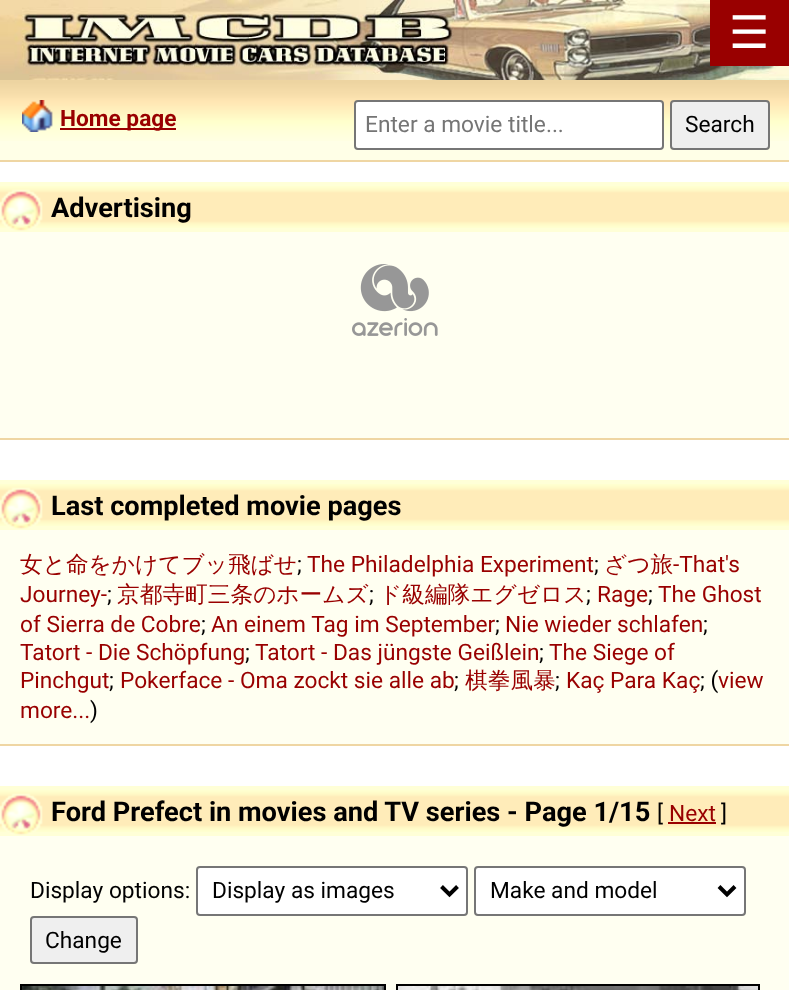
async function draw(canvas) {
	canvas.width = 789;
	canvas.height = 990;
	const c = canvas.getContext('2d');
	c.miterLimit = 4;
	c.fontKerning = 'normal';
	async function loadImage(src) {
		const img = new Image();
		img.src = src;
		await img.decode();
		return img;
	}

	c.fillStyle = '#fff';
	c.fillRect(0, 0, 789, 990);
	c.drawImage(await loadImage('img1.png'), 0, 0, 789, 80);
	c.fillStyle = '#900';
	c.fillRect(710, 0, 79, 66);
	c.font = '45px DejaVu Sans';
	c.fillStyle = '#fff';
	c.fillText('☰', 729, 48);
	c.fillStyle = '#ffffe7';
	c.fillRect(0, 141, 789, 19);
	c.drawImage(await loadImage('img2.png'), 0, 80, 789, 61);
	c.fillStyle = '#efd6a3';
	c.fillRect(0, 160, 789, 2);
	c.drawImage(await loadImage('img3.png'), 22, 100, 31, 32);
	c.fillStyle = '#900';
	c.fillRect(60, 128, 116, 2);
	c.font = 'bold 22.7px Roboto';
	c.fillText('Home page', 60, 126);
	c.fillStyle = '#fff';
	c.beginPath();
	c.roundRect(355, 101, 308, 48, 3);
	c.fill();
	c.strokeStyle = '#767676';
	c.lineWidth = 2;
	c.stroke();
	c.font = '22.7px Roboto';
	c.fillStyle = '#757575';
	c.fillText('Enter a movie title...', 365, 132);
	c.fillStyle = '#efefef';
	c.beginPath();
	c.roundRect(671, 101, 98, 48, 3);
	c.fill();
	c.stroke();
	c.fillStyle = '#000';
	c.fillText('Search', 685, 132);
	for (const [x, y, w, h, color] of [
		[0, 232, 789, 206, '#fffff1'],
		[0, 438, 789, 2, '#efd6a3'],
		[0, 182, 789, 50, '#ffffd7'],
	]) {
		c.fillStyle = color;
		c.fillRect(x, y, w, h);
	}
	c.drawImage(await loadImage('img4.png'), 0, 186, 789, 42);
	c.drawImage(await loadImage('img5.png'), 0, 189, 43, 42);
	c.font = 'bold 27.2px Roboto';
	c.fillStyle = '#000';
	c.fillText('Advertising', 51, 217);
	c.drawImage(await loadImage('img6.png'), 352, 264, 86, 72);
	for (const [x, y, w, h, color] of [
		[0, 530, 789, 214, '#fffff1'],
		[0, 744, 789, 2, '#efd6a3'],
		[0, 480, 789, 50, '#ffffd7'],
	]) {
		c.fillStyle = color;
		c.fillRect(x, y, w, h);
	}
	c.drawImage(await loadImage('img4.png'), 0, 484, 789, 42);
	c.drawImage(await loadImage('img5.png'), 0, 487, 43, 42);
	c.fillStyle = '#000';
	c.fillText('Last completed movie pages', 51, 515);
	c.font = '500 22.7px WenQuanYi Zen Hei';
	c.fillStyle = '#900';
	c.fillText('女と命をかけてブッ飛ばせ', 20, 572);
	c.font = '22.7px Roboto';
	c.fillStyle = '#000';
	c.fillText(';', 297, 572);
	c.fillStyle = '#900';
	c.fillText('The Philadelphia Experiment', 307, 572);
	c.fillStyle = '#000';
	c.fillText(';', 594, 572);
	c.font = '500 22.7px WenQuanYi Zen Hei';
	c.fillStyle = '#900';
	c.fillText('ざつ旅', 604, 572);
	c.font = '22.7px Roboto';
	c.fillText('-That\'s', 673, 572);
	c.fillText('Journey-', 20, 602);
	c.fillStyle = '#000';
	c.fillText(';', 107, 602);
	c.font = '500 22.7px WenQuanYi Zen Hei';
	c.fillStyle = '#900';
	c.fillText('京都寺町三条のホームズ', 117, 602);
	c.font = '22.7px Roboto';
	c.fillStyle = '#000';
	c.fillText(';', 369, 602);
	c.font = '500 22.7px WenQuanYi Zen Hei';
	c.fillStyle = '#900';
	c.fillText('ド級編隊エグゼロス', 379, 602);
	c.font = '22.7px Roboto';
	c.fillStyle = '#000';
	c.fillText(';', 586, 602);
	c.fillStyle = '#900';
	c.fillText('Rage', 597, 602);
	c.fillStyle = '#000';
	c.fillText(';', 648, 602);
	c.fillStyle = '#900';
	c.fillText('The Ghost', 658, 602);
	c.fillText('of Sierra de Cobre', 20, 632);
	c.fillStyle = '#000';
	c.fillText(';', 201, 632);
	c.fillStyle = '#900';
	c.fillText('An einem Tag im September', 211, 632);
	c.fillStyle = '#000';
	c.fillText(';', 495, 632);
	c.fillStyle = '#900';
	c.fillText('Nie wieder schlafen', 505, 632);
	c.fillStyle = '#000';
	c.fillText(';', 703, 632);
	c.fillStyle = '#900';
	c.fillText('Tatort - Die Schöpfung', 20, 660);
	c.fillStyle = '#000';
	c.fillText(';', 245, 660);
	c.fillStyle = '#900';
	c.fillText('Tatort - Das jüngste Geißlein', 255, 660);
	c.fillStyle = '#000';
	c.fillText(';', 539, 660);
	c.fillStyle = '#900';
	c.fillText('The Siege of', 549, 660);
	c.fillText('Pinchgut', 20, 688);
	c.fillStyle = '#000';
	c.fillText(';', 109, 688);
	c.fillStyle = '#900';
	c.fillText('Pokerface - Oma zockt sie alle ab', 120, 688);
	c.fillStyle = '#000';
	c.fillText(';', 454, 688);
	c.font = '500 22.7px WenQuanYi Zen Hei';
	c.fillStyle = '#900';
	c.fillText('棋拳風暴', 465, 688);
	c.font = '22.7px Roboto';
	c.fillStyle = '#000';
	c.fillText(';', 555, 688);
	c.fillStyle = '#900';
	c.fillText('Kaç Para Kaç', 566, 688);
	c.fillStyle = '#000';
	c.fillText('; (', 700, 688);
	c.fillStyle = '#900';
	c.fillText('view', 718, 688);
	c.fillText('more...', 20, 718);
	c.fillStyle = '#000';
	c.fillText(')', 90, 718);
	c.fillStyle = '#fffff1';
	c.fillRect(0, 836, 789, 154);
	c.fillStyle = '#ffffd7';
	c.fillRect(0, 786, 789, 50);
	c.drawImage(await loadImage('img4.png'), 0, 790, 789, 42);
	c.drawImage(await loadImage('img5.png'), 0, 793, 43, 42);
	c.font = 'bold 27.2px Roboto';
	c.fillStyle = '#000';
	c.fillText('Ford Prefect in movies and TV series - Page 1/15', 51, 821);
	c.font = '22.7px Roboto';
	c.fillText('[', 657, 821);
	c.fillStyle = '#900';
	c.fillText('Next', 669, 821);
	c.fillRect(668, 822, 48, 2);
	c.fillStyle = '#000';
	c.fillText(']', 721, 821);
	c.fillText('Display options:', 30, 898);
	c.fillStyle = '#fff';
	c.beginPath();
	c.roundRect(197, 867, 270, 48, 3);
	c.fill();
	c.stroke();
	c.beginPath();
	c.moveTo(441.5, 886.5);
	c.lineTo(449.5, 894.5);
	c.lineTo(457.5, 886.5);
	c.strokeStyle = '#000';
	c.lineWidth = 4;
	c.stroke();
	c.fillStyle = '#000';
	c.fillText('Display as images', 212, 898);
	c.fillStyle = '#fff';
	c.beginPath();
	c.roundRect(475, 867, 270, 48, 3);
	c.fill();
	c.strokeStyle = '#767676';
	c.lineWidth = 2;
	c.stroke();
	c.beginPath();
	c.moveTo(719, 886.5);
	c.lineTo(727, 894.5);
	c.lineTo(735, 886.5);
	c.strokeStyle = '#000';
	c.lineWidth = 4;
	c.stroke();
	c.fillStyle = '#000';
	c.fillText('Make and model', 490, 898);
	c.fillStyle = '#efefef';
	c.beginPath();
	c.roundRect(31, 917, 106, 46, 3);
	c.fill();
	c.strokeStyle = '#767676';
	c.lineWidth = 2;
	c.stroke();
	c.fillStyle = '#000';
	c.fillText('Change', 45, 948);
	c.strokeStyle = '#000';
	c.strokeRect(21, 985, 364, 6);
	c.drawImage(await loadImage('img7.png'), 22, 986, 362, 4);
	c.strokeRect(397, 985, 362, 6);
	c.drawImage(await loadImage('img8.png'), 398, 986, 360, 4);
}

draw(document.querySelector('canvas'));
